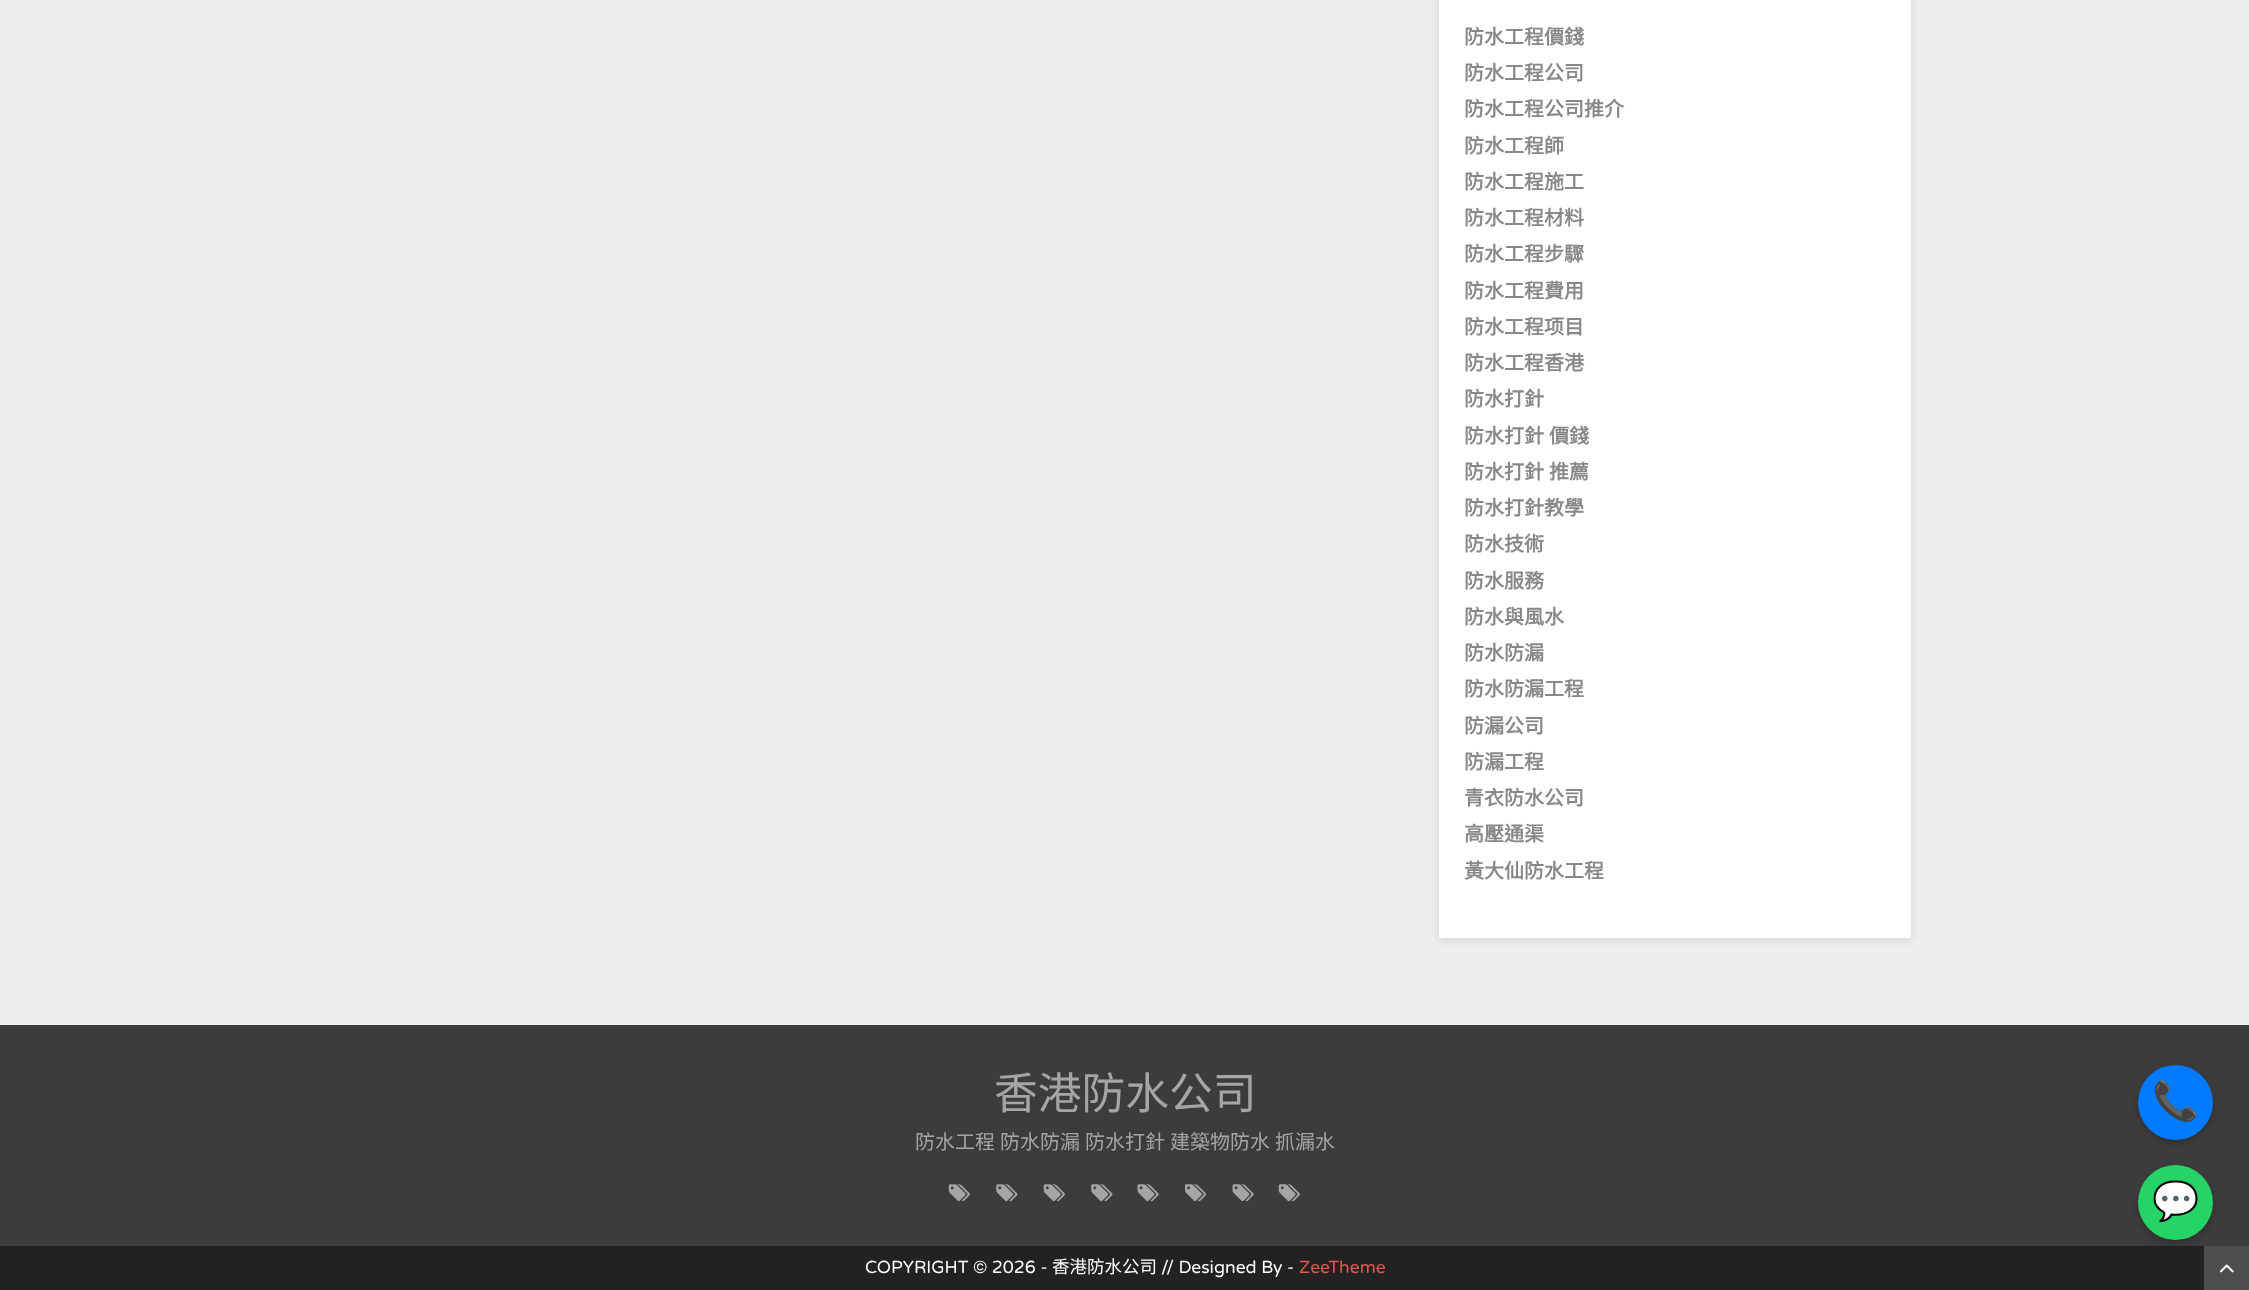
async function draw(canvas) {
	canvas.width = 2249;
	canvas.height = 1290;
	const c = canvas.getContext('2d');
	c.miterLimit = 4;
	c.fontKerning = 'normal';
	async function loadImage(src) {
		const img = new Image();
		img.src = src;
		await img.decode();
		return img;
	}

	c.fillStyle = '#eee';
	c.fillRect(0, 0, 2249, 1290);
	c.fillStyle = '#0000001a';
	c.filter = 'blur(4px)';
	c.beginPath();
	c.rect(1439, -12, 472, 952);
	c.fill();
	c.filter = 'none';
	c.fillStyle = '#fff';
	c.fillRect(1439, 0, 472, 938);
	c.font = 'bold 20px Noto Sans CJK HK';
	c.fillStyle = '#888';
	for (const [text, x, y] of [
		['防水工程價錢', 1464, 44],
		['防水工程公司', 1464, 80],
		['防水工程公司推介', 1464, 116],
		['防水工程師', 1464, 153],
		['防水工程施工', 1464, 189],
		['防水工程材料', 1464, 225],
		['防水工程步驟', 1464, 261],
		['防水工程費用', 1464, 298],
		['防水工程项目', 1464, 334],
		['防水工程香港', 1464, 370],
		['防水打針', 1464, 406],
	]) {
		c.fillText(text, x, y);
	}
	c.wordSpacing = '0.5px';
	c.fillText('防水打針 價錢', 1464, 443);
	c.fillText('防水打針 推薦', 1464, 479);
	c.wordSpacing = '0px';
	for (const [text, x, y] of [
		['防水打針教學', 1464, 515],
		['防水技術', 1464, 551],
		['防水服務', 1464, 588],
		['防水與風水', 1464, 624],
		['防水防漏', 1464, 660],
		['防水防漏工程', 1464, 696],
		['防漏公司', 1464, 733],
		['防漏工程', 1464, 769],
		['青衣防水公司', 1464, 805],
		['高壓通渠', 1464, 841],
		['黃大仙防水工程', 1464, 878],
	]) {
		c.fillText(text, x, y);
	}
	c.fillStyle = '#3c3c3c';
	c.fillRect(0, 1025, 2249, 221);
	c.font = '43.75px Noto Sans CJK HK';
	c.fillStyle = '#a5a5a5';
	c.fillText('香港防水公司', 994, 1109);
	c.wordSpacing = '0.5px';
	c.font = '20px Noto Sans CJK HK';
	c.fillText('防水工程 防水防漏 防水打針 建築物防水 抓漏水', 915, 1149);
	c.drawImage(await loadImage('img1.png'), 948, 1184, 22, 18);
	c.drawImage(await loadImage('img2.png'), 996, 1184, 22, 18);
	c.drawImage(await loadImage('img1.png'), 1043, 1184, 22, 18);
	c.drawImage(await loadImage('img2.png'), 1091, 1184, 22, 18);
	c.drawImage(await loadImage('img3.png'), 1137, 1184, 22, 18);
	c.drawImage(await loadImage('img4.png'), 1185, 1184, 22, 18);
	c.drawImage(await loadImage('img3.png'), 1232, 1184, 22, 18);
	c.drawImage(await loadImage('img1.png'), 1278, 1184, 22, 18);
	c.fillStyle = '#222';
	c.fillRect(0, 1246, 2204, 44);
	c.wordSpacing = '0px';
	c.font = '17.5px Varela Round';
	c.fillStyle = '#fff';
	c.fillText('COPYRIGHT © 2026 -', 865, 1273);
	c.font = '17.5px Noto Sans CJK HK';
	c.fillText('香港防水公司', 1052, 1273);
	c.font = '17.5px Varela Round';
	c.fillText('// Designed By -', 1161, 1273);
	c.fillStyle = '#e5554e';
	c.fillText('ZeeTheme', 1299, 1273);
	c.fillStyle = '#4e4e4e';
	c.fillRect(2204, 1246, 45, 44);
	c.drawImage(await loadImage('img5.png'), 2219, 1264, 15, 9);
	c.fillStyle = '#00000033';
	c.filter = 'blur(3px)';
	c.beginPath();
	c.roundRect(2138, 1068, 75, 75, 37.5);
	c.fill();
	c.filter = 'none';
	c.fillStyle = '#007bff';
	c.beginPath();
	c.arc(2175.5, 1102.5, 37.5, 0, 2 * Math.PI);
	c.fill();
	c.font = '38px Noto Color Emoji';
	c.fillStyle = '#fff';
	c.fillText('📞', 2152, 1114);
	c.fillStyle = '#00000033';
	c.filter = 'blur(3px)';
	c.beginPath();
	c.roundRect(2138, 1168, 75, 75, 37.5);
	c.fill();
	c.filter = 'none';
	c.fillStyle = '#25d366';
	c.beginPath();
	c.arc(2175.5, 1202.5, 37.5, 0, 2 * Math.PI);
	c.fill();
	c.fillStyle = '#fff';
	c.fillText('💬', 2152, 1214);
}

draw(document.querySelector('canvas'));
